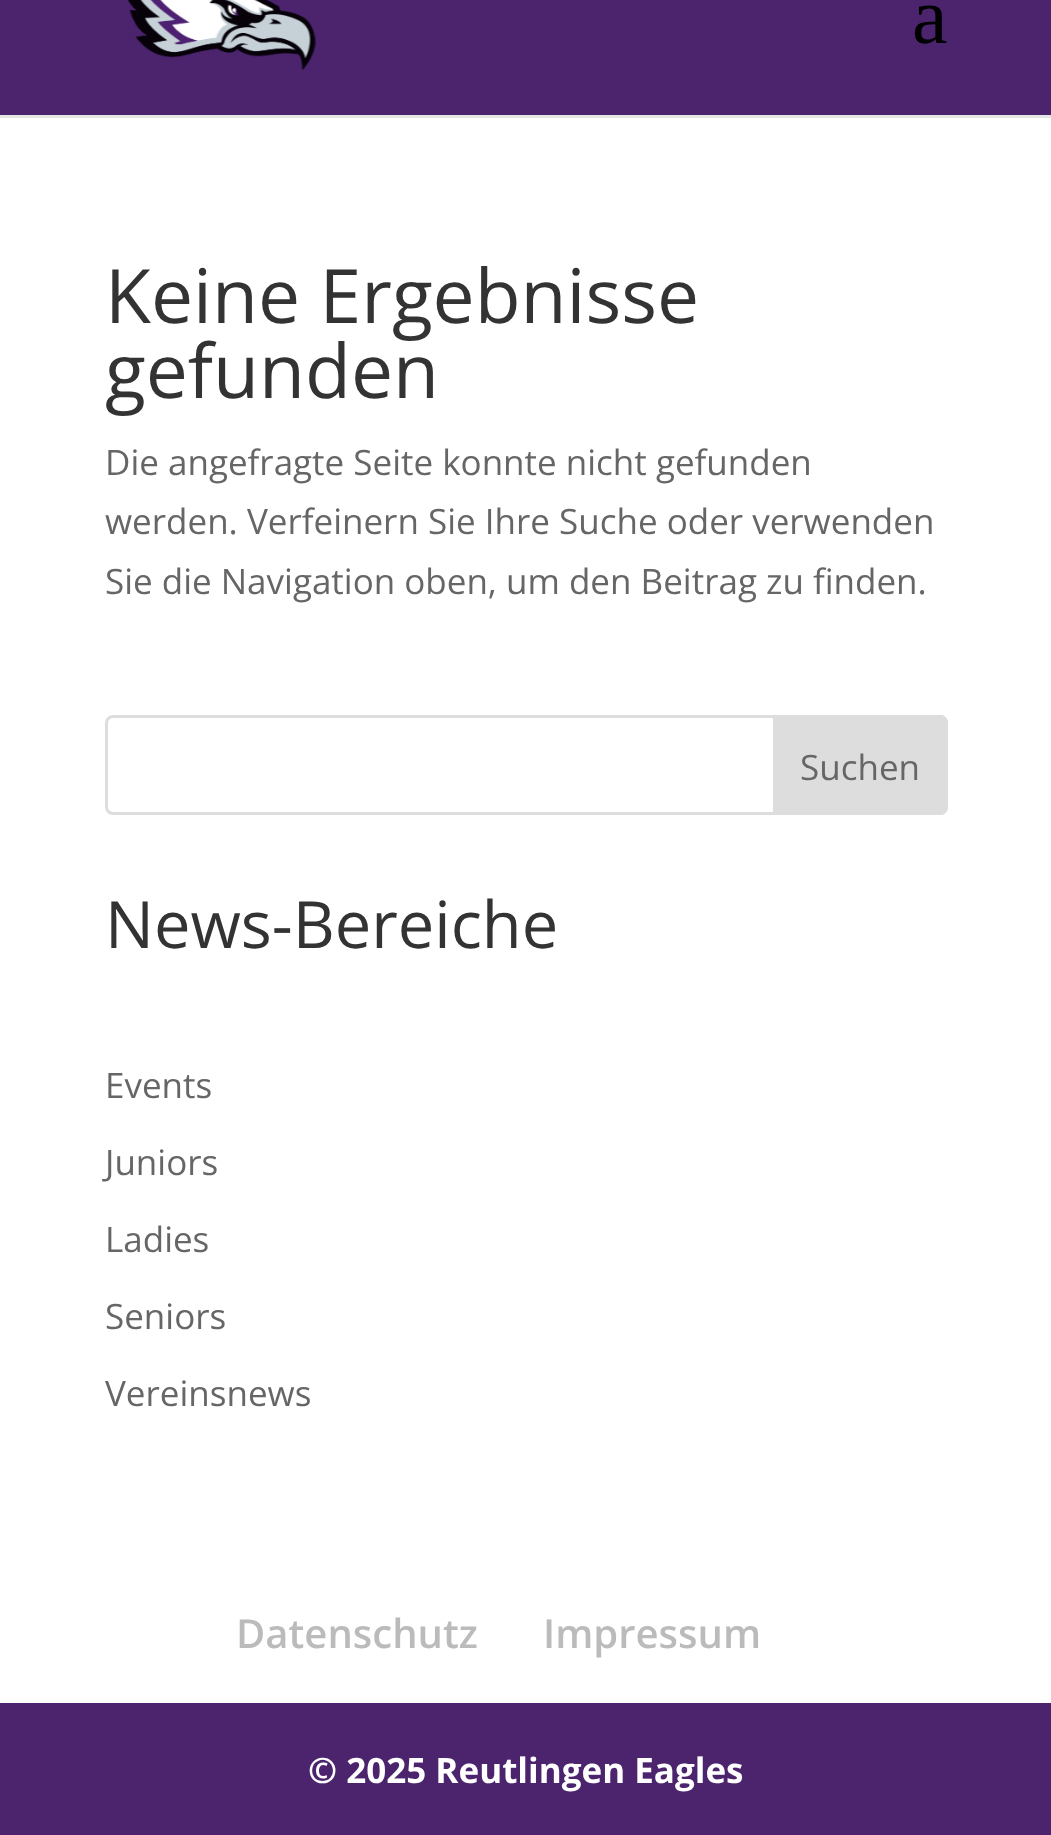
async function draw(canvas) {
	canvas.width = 1051;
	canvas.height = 1835;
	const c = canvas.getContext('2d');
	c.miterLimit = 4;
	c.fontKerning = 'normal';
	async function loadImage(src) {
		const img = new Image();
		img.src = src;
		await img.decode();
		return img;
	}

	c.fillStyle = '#fff';
	c.fillRect(0, 0, 1051, 1835);
	c.fillStyle = '#e6e6e6';
	c.beginPath();
	c.moveTo(0, 115);
	c.lineTo(0, 118);
	c.lineTo(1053, 118);
	c.lineTo(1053, -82);
	c.lineTo(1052, -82);
	c.lineTo(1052, 115);
	c.closePath();
	c.fill();
	c.fillStyle = '#4c246e';
	c.fillRect(0, 0, 1051, 115);
	c.drawImage(await loadImage('img1.png'), 127, 0, 189, 70);
	c.font = '80px Liberation Serif';
	c.fillStyle = '#000';
	c.fillText('a', 912, 43);
	c.font = '75px Open Sans';
	c.fillStyle = '#333';
	c.fillText('Keine Ergebnisse', 105, 323);
	c.fillText('gefunden', 105, 398);
	c.font = '35px Open Sans';
	c.fillStyle = '#666';
	for (const [text, x, y] of [
		['Die angefragte Seite konnte nicht gefunden', 105, 475],
		['werden. Verfeinern Sie Ihre Suche oder verwenden', 105, 534],
		['Sie die Navigation oben, um den Beitrag zu finden.', 105, 594],
	]) {
		c.fillText(text, x, y);
	}
	c.beginPath();
	c.roundRect(106.5, 716.5, 840, 97, 6.5);
	c.strokeStyle = '#ddd';
	c.lineWidth = 3;
	c.stroke();
	c.fillStyle = '#ddd';
	c.beginPath();
	c.roundRect(774.5, 716.5, 172, 97, [0, 6.5, 6.5, 0]);
	c.fill();
	c.stroke();
	c.fillStyle = '#666';
	c.fillText('Suchen', 800, 780);
	c.font = '65px Open Sans';
	c.fillStyle = '#333';
	c.fillText('News-Bereiche', 105, 948);
	c.font = '35px Open Sans';
	c.fillStyle = '#666';
	for (const [text, x, y] of [
		['Events', 105, 1098],
		['Juniors', 105, 1175],
		['Ladies', 105, 1252],
		['Seniors', 105, 1329],
		['Vereinsnews', 105, 1406],
	]) {
		c.fillText(text, x, y);
	}
	c.font = '600 40px Open Sans';
	c.fillStyle = '#bbb';
	c.fillText('Datenschutz', 236, 1648);
	c.fillText('Impressum', 543, 1648);
	c.fillStyle = '#4c246e';
	c.fillRect(0, 1703, 1051, 132);
	c.font = 'bold 35px Open Sans';
	c.fillStyle = '#fff';
	c.fillText('© 2025 Reutlingen Eagles', 308, 1783);
}

draw(document.querySelector('canvas'));
